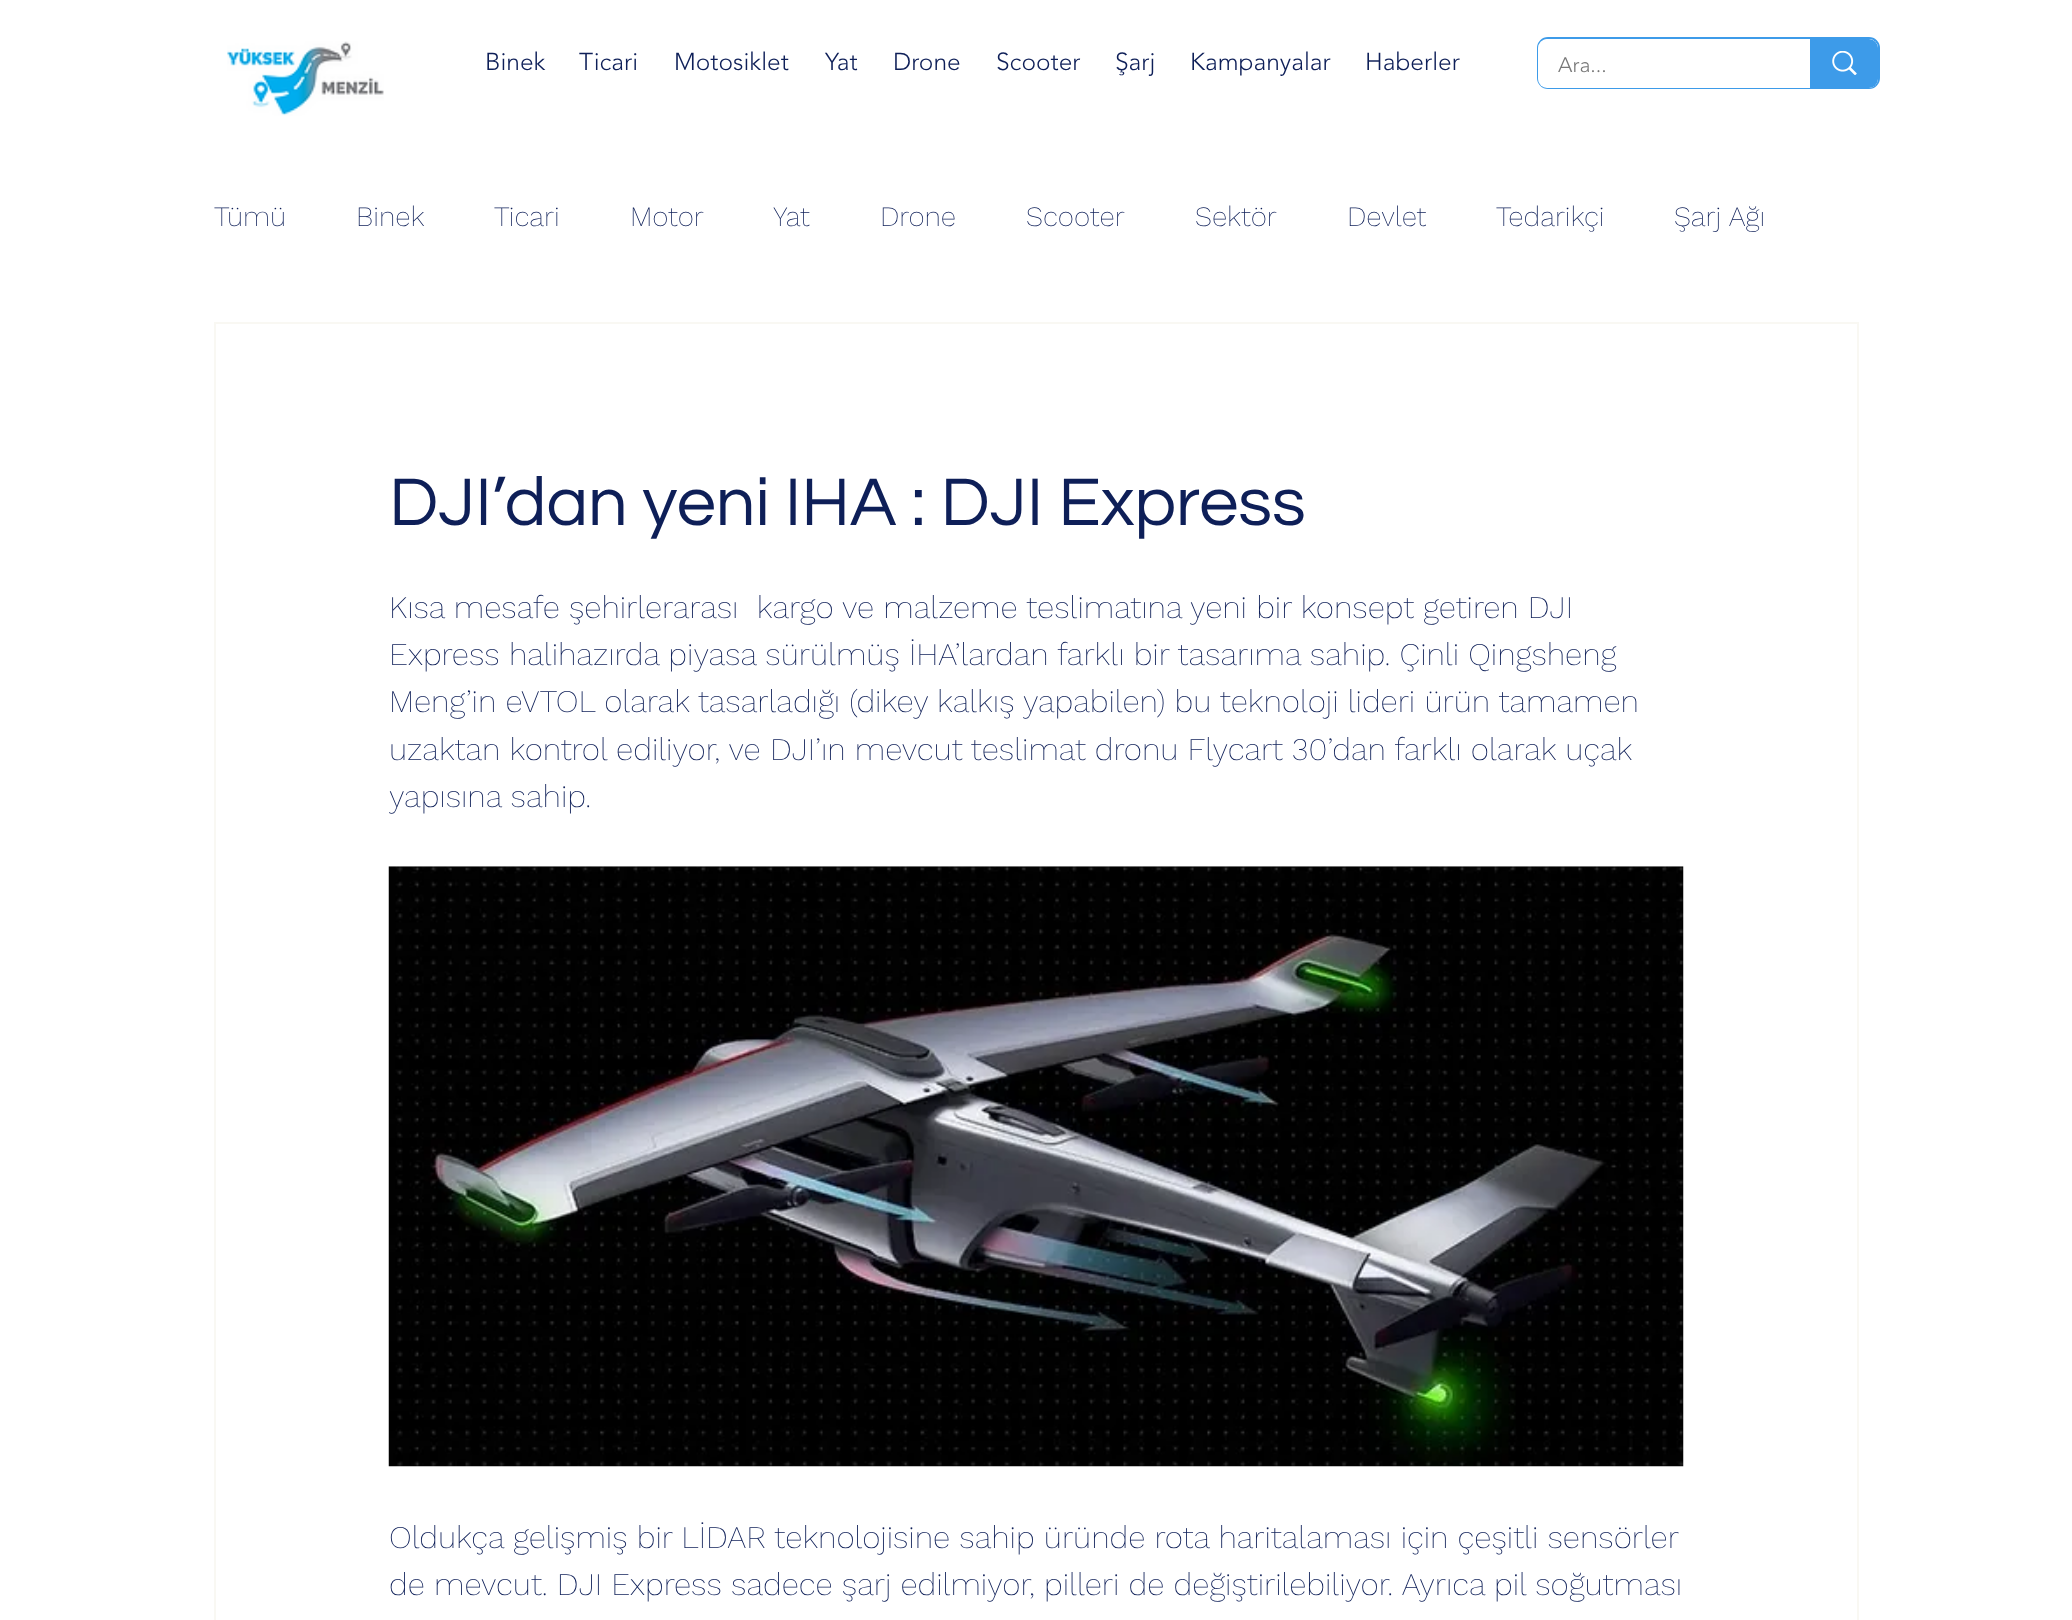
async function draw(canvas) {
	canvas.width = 2072;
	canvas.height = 1620;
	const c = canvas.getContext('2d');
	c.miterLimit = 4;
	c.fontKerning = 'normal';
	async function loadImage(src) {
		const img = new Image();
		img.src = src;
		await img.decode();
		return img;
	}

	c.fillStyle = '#fff';
	c.fillRect(0, 0, 2072, 1620);
	c.drawImage(await loadImage('img1.png'), 227, 41, 157, 75);
	c.font = '300 24.5px "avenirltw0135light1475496"';
	c.fillStyle = '#0e1f58';
	for (const [text, x, y] of [
		['Binek', 485, 70],
		['Ticari', 579, 70],
		['Motosiklet', 674, 70],
		['Yat', 825, 70],
		['Drone', 893, 70],
		['Scooter', 996, 70],
		['Şarj', 1115, 70],
		['Kampanyalar', 1190, 70],
		['Haberler', 1365, 70],
	]) {
		c.fillText(text, x, y);
	}
	c.beginPath();
	c.roundRect(1538, 38, 341, 50, 10);
	c.strokeStyle = '#3d9be9';
	c.lineWidth = 2;
	c.stroke();
	c.fillStyle = '#fff';
	c.beginPath();
	c.roundRect(1538, 39, 340, 49, 9);
	c.fill();
	c.font = '300 21px "avenirltw0135light1475496"';
	c.fillStyle = '#787878';
	c.fillText('Ara...', 1558, 72);
	c.fillStyle = '#3d9be9';
	c.beginPath();
	c.roundRect(1810, 39, 68, 49, [0, 9, 9, 0]);
	c.fill();
	c.drawImage(await loadImage('img2.png'), 1832, 51, 25, 24);
	c.font = '200 28px Work Sans';
	c.fillStyle = '#0e1f58';
	for (const [text, x, y] of [
		['Tümü', 214, 226],
		['Binek', 356, 226],
		['Ticari', 494, 226],
		['Motor', 630, 226],
		['Yat', 773, 226],
		['Drone', 880, 226],
		['Scooter', 1026, 226],
		['Sektör', 1195, 226],
		['Devlet', 1347, 226],
		['Tedarikçi', 1496, 226],
		['Şarj Ağı', 1674, 226],
	]) {
		c.fillText(text, x, y);
	}
	c.strokeStyle = '#f9f8f3';
	c.strokeRect(215, 323, 1643, 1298);
	c.font = '70px Questrial';
	c.fillText('DJI’dan yeni IHA : DJI Express', 389, 525);
	c.font = '200 31.5px Work Sans';
	for (const [text, x, y] of [
		['Kısa mesafe şehirlerarası  kargo ve malzeme teslimatına yeni bir konsept getiren DJI', 389, 618],
		['Express halihazırda piyasa sürülmüş İHA’lardan farklı bir tasarıma sahip. Çinli Qingsheng', 389, 665],
		['Meng’in eVTOL olarak tasarladığı (dikey kalkış yapabilen) bu teknoloji lideri ürün tamamen', 389, 712],
		['uzaktan kontrol ediliyor, ve DJI’ın mevcut teslimat dronu Flycart 30’dan farklı olarak uçak', 389, 760],
		['yapısına sahip.', 389, 807],
	]) {
		c.fillText(text, x, y);
	}
	c.drawImage(await loadImage('img3.png'), 388, 866, 1296, 601);
	c.fillText('Oldukça gelişmiş bir LİDAR teknolojisine sahip üründe rota haritalaması için çeşitli sensörler', 389, 1548);
	c.fillText('de mevcut. DJI Express sadece şarj edilmiyor, pilleri de değiştirilebiliyor. Ayrıca pil soğutması', 389, 1595);
}

draw(document.querySelector('canvas'));
